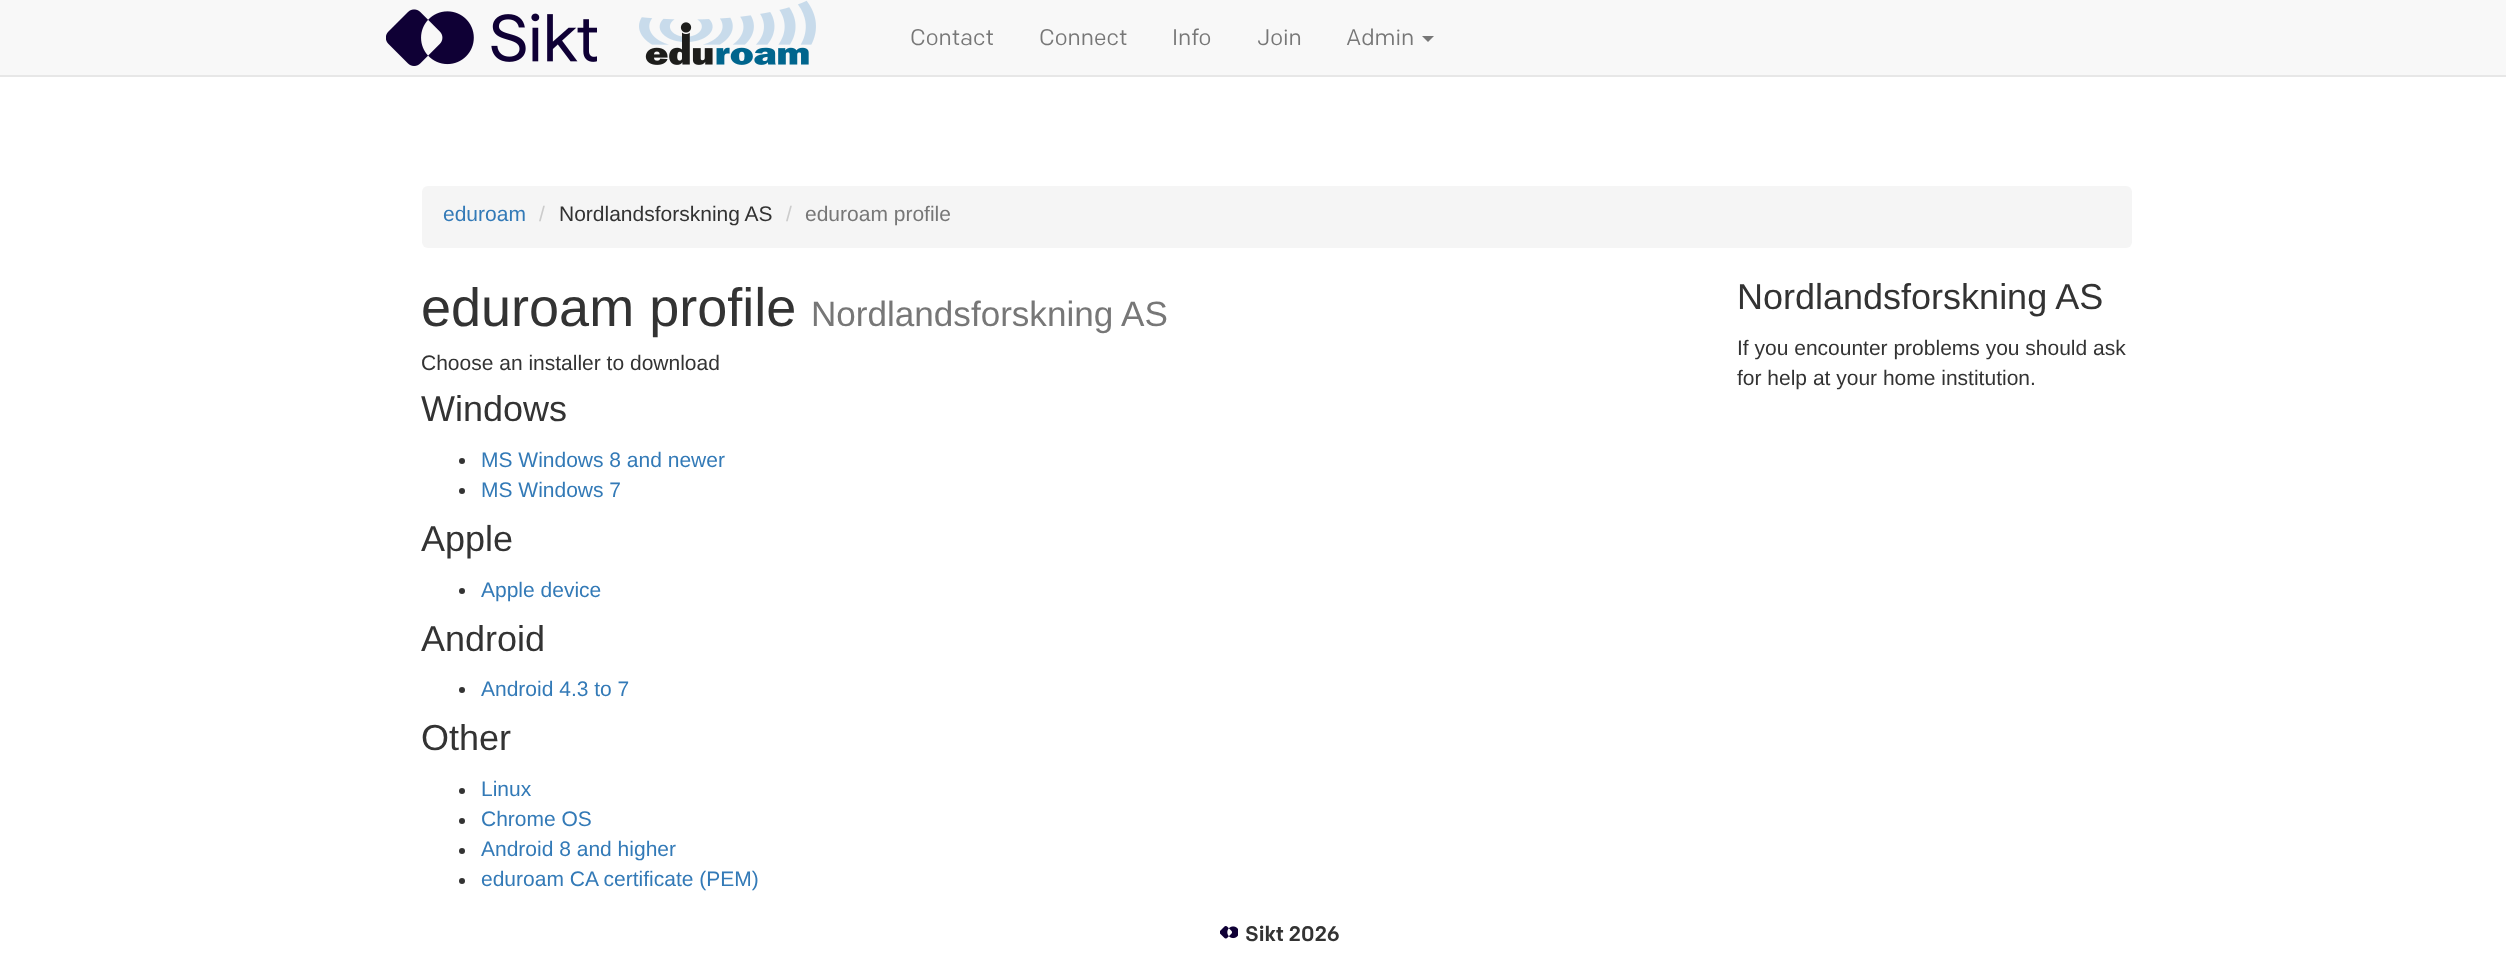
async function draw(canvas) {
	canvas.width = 2506;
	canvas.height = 974;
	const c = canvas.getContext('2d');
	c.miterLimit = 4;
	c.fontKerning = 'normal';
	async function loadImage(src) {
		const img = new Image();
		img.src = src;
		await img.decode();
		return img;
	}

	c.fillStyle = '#fff';
	c.fillRect(0, 0, 2506, 974);
	c.fillStyle = '#f8f8f8';
	c.fillRect(0, 0, 2506, 75);
	c.fillStyle = '#e7e7e7';
	c.fillRect(0, 75, 2506, 2);
	c.drawImage(await loadImage('img1.png'), 386, 9, 211, 57);
	c.drawImage(await loadImage('img2.png'), 639, 0, 177, 65);
	c.font = '22.5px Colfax';
	c.fillStyle = '#777';
	for (const [text, x, y] of [
		['Contact', 910, 45],
		['Connect', 1039, 45],
		['Info', 1172, 45],
		['Join', 1257, 45],
		['Admin', 1346, 45],
	]) {
		c.fillText(text, x, y);
	}
	c.beginPath();
	c.moveTo(1422, 36);
	c.lineTo(1434, 36);
	c.lineTo(1428, 42);
	c.closePath();
	c.fill();
	c.fillStyle = '#f5f5f5';
	c.beginPath();
	c.roundRect(422, 186, 1710, 62, 6);
	c.fill();
	c.font = '21px Liberation Sans';
	c.fillStyle = '#337ab7';
	c.fillText('eduroam', 443, 221);
	c.fillStyle = '#ccc';
	c.fillText('/', 539, 221);
	c.fillStyle = '#333';
	c.fillText('Nordlandsforskning AS', 559, 221);
	c.fillStyle = '#ccc';
	c.fillText('/', 786, 221);
	c.fillStyle = '#777';
	c.fillText('eduroam profile', 805, 221);
	c.font = '54px Liberation Sans';
	c.fillStyle = '#333';
	c.fillText('eduroam profile', 421, 326);
	c.font = '35.1px Liberation Sans';
	c.fillStyle = '#777';
	c.fillText('Nordlandsforskning AS', 811, 326);
	c.font = '21px Liberation Sans';
	c.fillStyle = '#333';
	c.fillText('Choose an installer to download', 421, 370);
	c.font = '36px Liberation Sans';
	c.fillText('Windows', 421, 421);
	c.beginPath();
	c.arc(462, 461, 3, 0, 2 * Math.PI);
	c.fill();
	c.font = '21px Liberation Sans';
	c.fillStyle = '#337ab7';
	c.fillText('MS Windows 8 and newer', 481, 467);
	c.fillStyle = '#333';
	c.beginPath();
	c.arc(462, 491, 3, 0, 2 * Math.PI);
	c.fill();
	c.fillStyle = '#337ab7';
	c.fillText('MS Windows 7', 481, 497);
	c.font = '36px Liberation Sans';
	c.fillStyle = '#333';
	c.fillText('Apple', 421, 551);
	c.beginPath();
	c.arc(462, 591, 3, 0, 2 * Math.PI);
	c.fill();
	c.font = '21px Liberation Sans';
	c.fillStyle = '#337ab7';
	c.fillText('Apple device', 481, 597);
	c.font = '36px Liberation Sans';
	c.fillStyle = '#333';
	c.fillText('Android', 421, 651);
	c.beginPath();
	c.arc(462, 690, 3, 0, 2 * Math.PI);
	c.fill();
	c.font = '21px Liberation Sans';
	c.fillStyle = '#337ab7';
	c.fillText('Android 4.3 to 7', 481, 696);
	c.font = '36px Liberation Sans';
	c.fillStyle = '#333';
	c.fillText('Other', 421, 750);
	c.beginPath();
	c.arc(462, 791, 3, 0, 2 * Math.PI);
	c.fill();
	c.font = '21px Liberation Sans';
	c.fillStyle = '#337ab7';
	c.fillText('Linux', 481, 796);
	c.fillStyle = '#333';
	c.beginPath();
	c.arc(462, 821, 3, 0, 2 * Math.PI);
	c.fill();
	c.fillStyle = '#337ab7';
	c.fillText('Chrome OS', 481, 826);
	c.fillStyle = '#333';
	c.beginPath();
	c.arc(462, 851, 3, 0, 2 * Math.PI);
	c.fill();
	c.fillStyle = '#337ab7';
	c.fillText('Android 8 and higher', 481, 856);
	c.fillStyle = '#333';
	c.beginPath();
	c.arc(462, 881, 3, 0, 2 * Math.PI);
	c.fill();
	c.fillStyle = '#337ab7';
	c.fillText('eduroam CA certificate (PEM)', 481, 886);
	c.font = '36px Liberation Sans';
	c.fillStyle = '#333';
	c.fillText('Nordlandsforskning AS', 1737, 309);
	c.font = '21px Liberation Sans';
	c.fillText('If you encounter problems you should ask', 1737, 355);
	c.fillText('for help at your home institution.', 1737, 385);
	c.drawImage(await loadImage('img3.png'), 1220, 926, 18, 13);
	c.font = '500 21px Colfax';
	c.fillText('Sikt 2026', 1245, 941);
}

draw(document.querySelector('canvas'));
